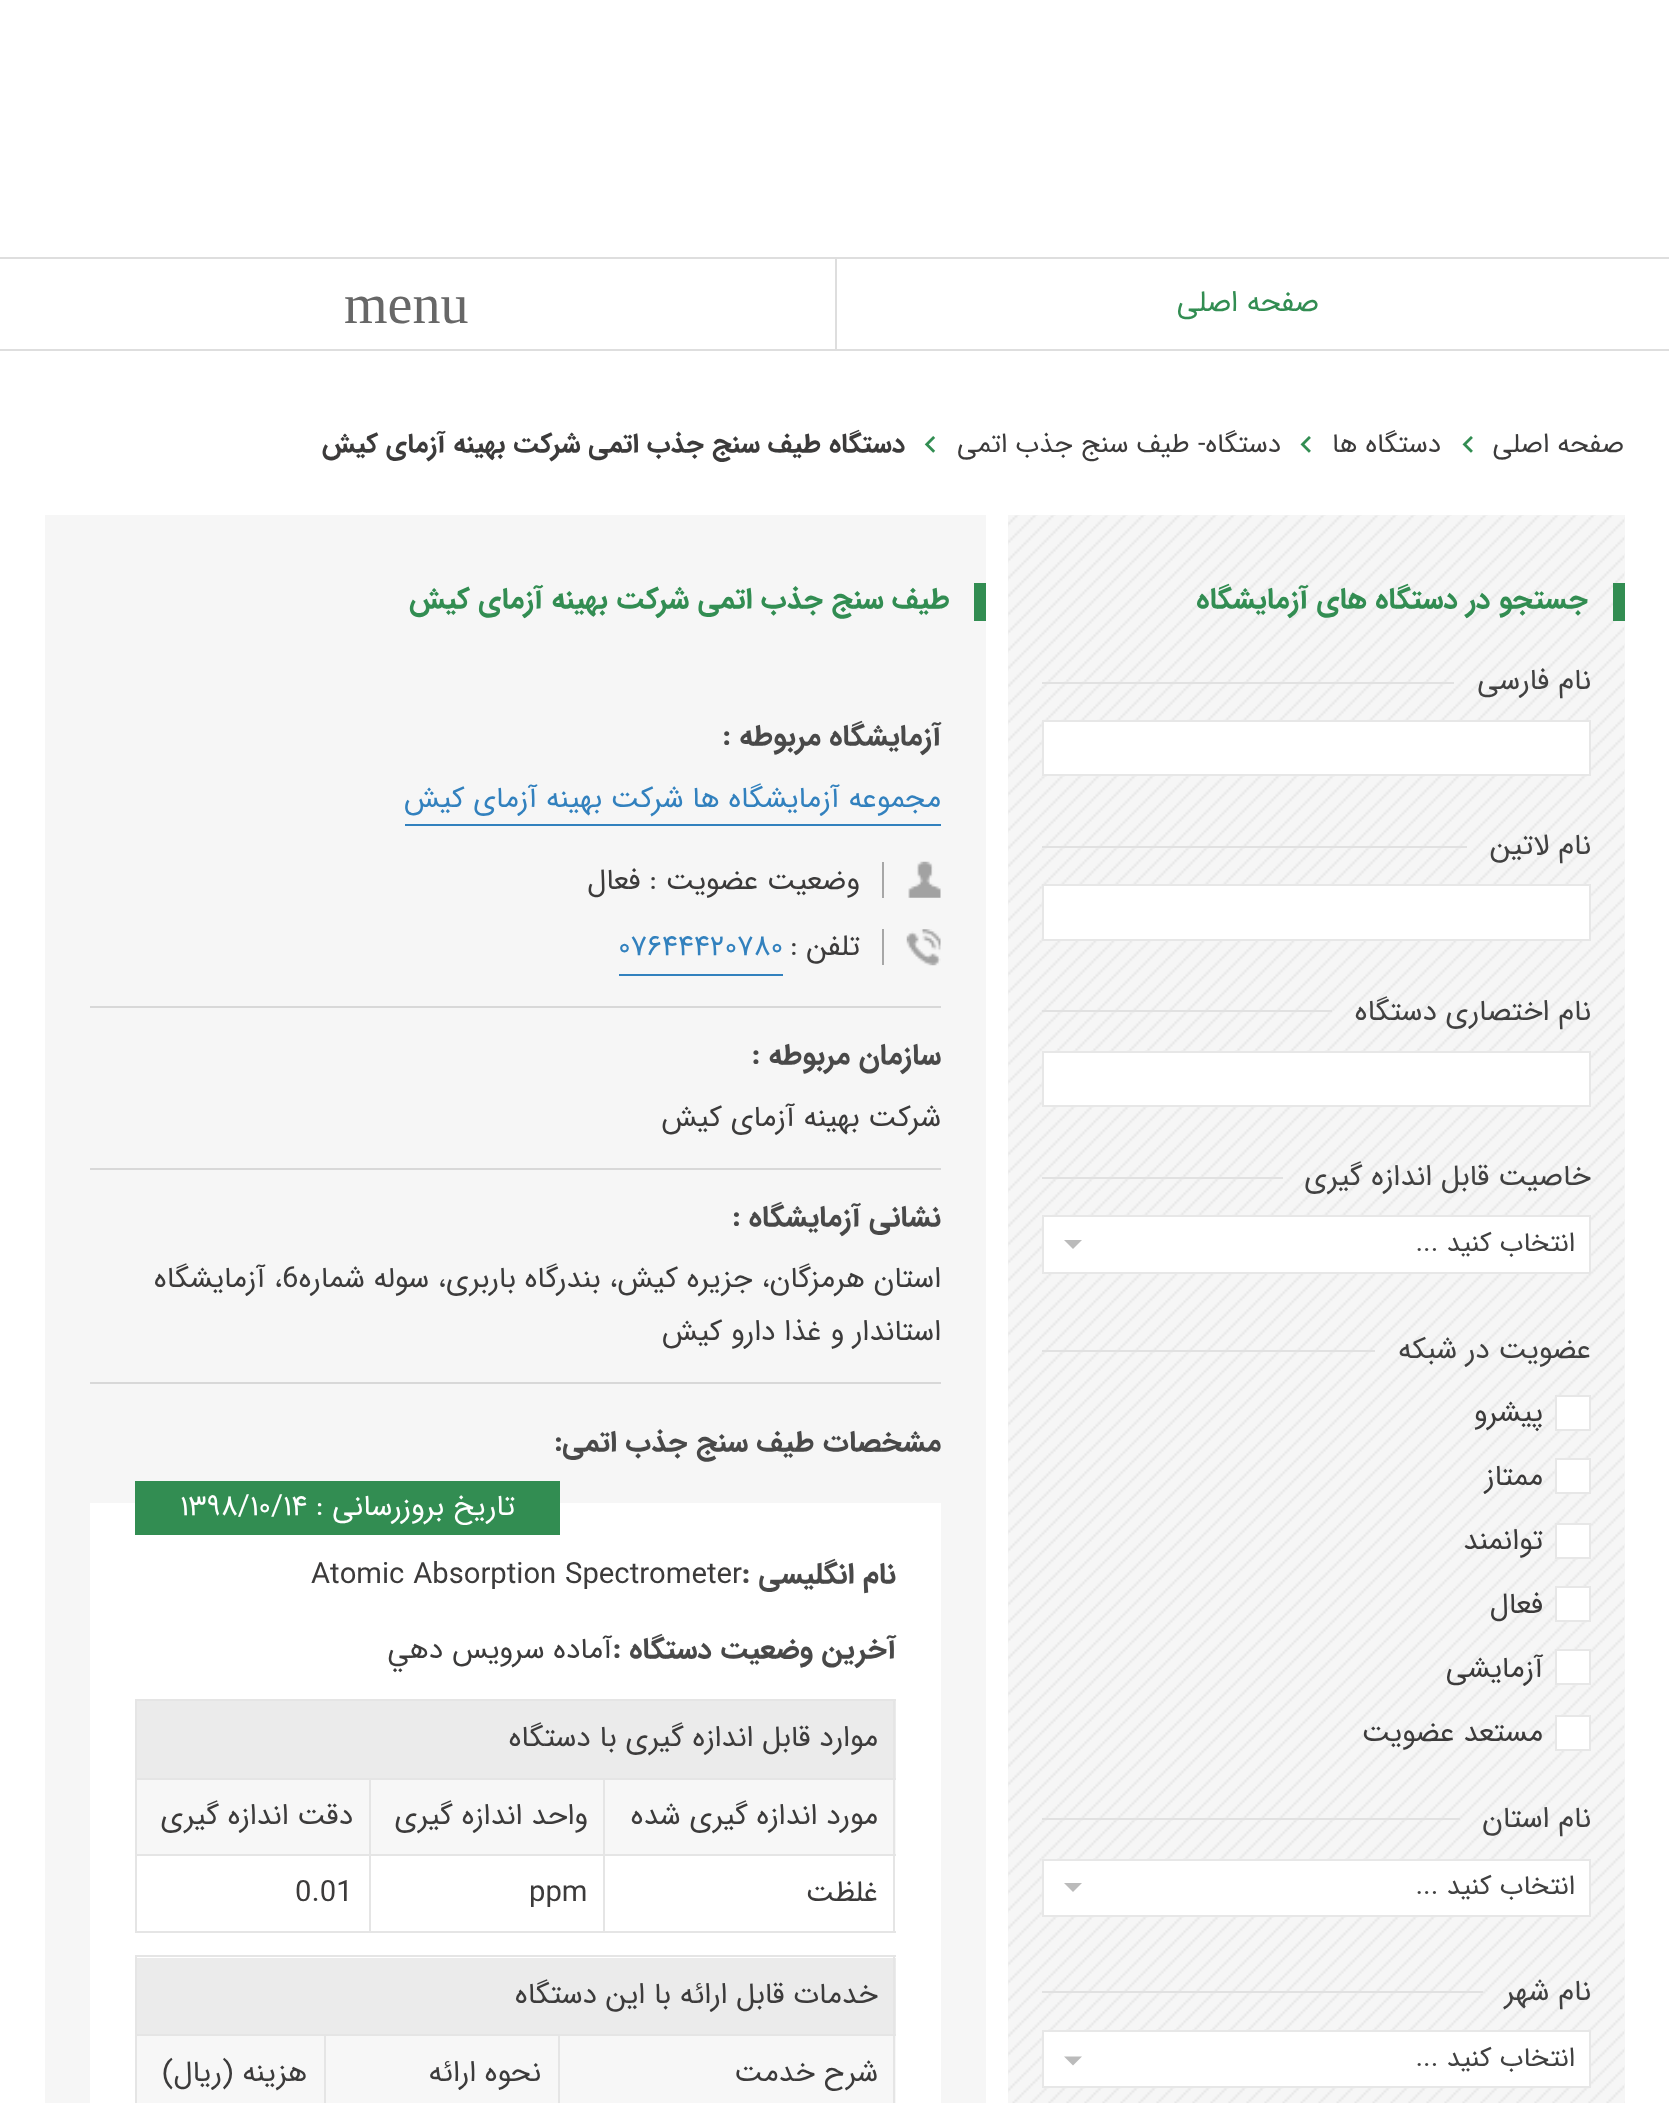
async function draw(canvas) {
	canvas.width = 1669;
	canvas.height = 2103;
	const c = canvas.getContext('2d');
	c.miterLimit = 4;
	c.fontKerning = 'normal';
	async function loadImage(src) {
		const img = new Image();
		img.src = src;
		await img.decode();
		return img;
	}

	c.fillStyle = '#fff';
	c.fillRect(0, 0, 1669, 2103);
	for (const [x, y, w, h, color] of [
		[0, 257, 1669, 2, '#dedede'],
		[0, 349, 1669, 2, '#dedede'],
		[835, 259, 2, 90, '#dedede'],
	]) {
		c.fillStyle = color;
		c.fillRect(x, y, w, h);
	}
	c.direction = 'rtl';
	c.font = '29.25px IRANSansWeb';
	c.fillStyle = '#328d52';
	c.fillText('صفحه اصلی', 1319, 311);
	c.direction = 'ltr';
	c.font = '56px Liberation Serif';
	c.fillStyle = '#676767';
	c.fillText('menu', 344, 323);
	c.direction = 'rtl';
	c.font = '27px IRANSansWeb';
	c.fillStyle = '#3c3b3b';
	c.fillText('صفحه اصلی', 1624, 452);
	c.drawImage(await loadImage('img1.png'), 1462, 436, 11, 17);
	c.fillText('دستگاه ها', 1441, 452);
	c.drawImage(await loadImage('img1.png'), 1300, 436, 11, 17);
	c.fillText('دستگاه- طیف سنج جذب اتمی', 1281, 452);
	c.drawImage(await loadImage('img2.png'), 924, 436, 12, 17);
	c.font = 'bold 27px IRANSansWeb';
	c.fillText('دستگاه طیف سنج جذب اتمی شرکت بهینه آزمای کیش', 905, 452);
	c.fillStyle = '#f6f6f6';
	c.fillRect(1008, 515, 617, 1588);
	c.drawImage(await loadImage('img3.png'), 1008, 515, 617, 1588);
	c.fillStyle = '#328d52';
	c.fillRect(1613, 583, 12, 38);
	c.font = 'bold 29.25px IRANSansWeb';
	c.fillText('جستجو در دستگاه های آزمایشگاه', 1588, 608);
	c.font = '29.25px IRANSansWeb';
	c.fillStyle = '#414141';
	c.fillText('نام فارسی', 1591, 689);
	c.fillStyle = '#e1e1e1';
	c.fillRect(1042, 682, 412, 2);
	c.fillStyle = '#fff';
	c.beginPath();
	c.rect(1043, 721, 547, 54);
	c.fill();
	c.strokeStyle = '#e7e7e7';
	c.lineWidth = 2;
	c.stroke();
	c.fillStyle = '#414141';
	c.fillText('نام لاتین', 1591, 854);
	c.fillStyle = '#e1e1e1';
	c.fillRect(1042, 846, 425, 2);
	c.fillStyle = '#fff';
	c.beginPath();
	c.rect(1043, 885, 547, 55);
	c.fill();
	c.stroke();
	c.fillStyle = '#414141';
	c.fillText('نام اختصاری دستگاه', 1591, 1020);
	c.fillStyle = '#e1e1e1';
	c.fillRect(1042, 1010, 290, 2);
	c.fillStyle = '#fff';
	c.beginPath();
	c.rect(1043, 1052, 547, 54);
	c.fill();
	c.stroke();
	c.fillStyle = '#414141';
	c.fillText('خاصیت قابل اندازه گیری', 1591, 1185);
	c.fillStyle = '#e1e1e1';
	c.fillRect(1042, 1177, 241, 2);
	c.fillStyle = '#fff';
	c.beginPath();
	c.rect(1043, 1216, 547, 57);
	c.fill();
	c.stroke();
	c.font = '27px IRANSansWeb';
	c.fillStyle = '#414141';
	c.fillText('انتخاب کنید ...', 1575, 1251);
	c.fillStyle = '#bbb';
	c.beginPath();
	c.moveTo(1064, 1240);
	c.lineTo(1082, 1240);
	c.lineTo(1073, 1249);
	c.closePath();
	c.fill();
	c.font = '29.25px IRANSansWeb';
	c.fillStyle = '#414141';
	c.fillText('عضویت در شبکه', 1591, 1358);
	c.fillStyle = '#e1e1e1';
	c.fillRect(1042, 1350, 333, 2);
	c.fillStyle = '#fff';
	c.beginPath();
	c.rect(1556, 1396, 34, 34);
	c.fill();
	c.stroke();
	c.fillStyle = '#3c3b3b';
	c.fillText('پیشرو', 1543, 1421);
	c.fillStyle = '#fff';
	c.beginPath();
	c.rect(1556, 1459, 34, 34);
	c.fill();
	c.stroke();
	c.fillStyle = '#3c3b3b';
	c.fillText('ممتاز', 1543, 1485);
	c.fillStyle = '#fff';
	c.beginPath();
	c.rect(1556, 1524, 34, 34);
	c.fill();
	c.stroke();
	c.fillStyle = '#3c3b3b';
	c.fillText('توانمند', 1543, 1549);
	c.fillStyle = '#fff';
	c.beginPath();
	c.rect(1556, 1587, 34, 34);
	c.fill();
	c.stroke();
	c.fillStyle = '#3c3b3b';
	c.fillText('فعال', 1543, 1613);
	c.fillStyle = '#fff';
	c.beginPath();
	c.rect(1556, 1650, 34, 34);
	c.fill();
	c.stroke();
	c.fillStyle = '#3c3b3b';
	c.fillText('آزمایشی', 1543, 1677);
	c.fillStyle = '#fff';
	c.beginPath();
	c.rect(1556, 1716, 34, 34);
	c.fill();
	c.stroke();
	c.fillStyle = '#3c3b3b';
	c.fillText('مستعد عضویت', 1543, 1741);
	c.fillStyle = '#414141';
	c.fillText('نام استان', 1591, 1827);
	c.fillStyle = '#e1e1e1';
	c.fillRect(1042, 1818, 418, 2);
	c.fillStyle = '#fff';
	c.beginPath();
	c.rect(1043, 1860, 547, 56);
	c.fill();
	c.stroke();
	c.font = '27px IRANSansWeb';
	c.fillStyle = '#414141';
	c.fillText('انتخاب کنید ...', 1575, 1894);
	c.fillStyle = '#bbb';
	c.beginPath();
	c.moveTo(1064, 1883);
	c.lineTo(1082, 1883);
	c.lineTo(1073, 1892);
	c.closePath();
	c.fill();
	c.font = '29.25px IRANSansWeb';
	c.fillStyle = '#414141';
	c.fillText('نام شهر', 1591, 2000);
	c.fillStyle = '#e1e1e1';
	c.fillRect(1042, 1991, 441, 2);
	c.fillStyle = '#fff';
	c.beginPath();
	c.rect(1043, 2031, 547, 56);
	c.fill();
	c.stroke();
	c.font = '27px IRANSansWeb';
	c.fillStyle = '#414141';
	c.fillText('انتخاب کنید ...', 1575, 2066);
	c.fillStyle = '#bbb';
	c.beginPath();
	c.moveTo(1064, 2056.5);
	c.lineTo(1082, 2056.5);
	c.lineTo(1073, 2065.5);
	c.closePath();
	c.fill();
	c.fillStyle = '#f6f6f6';
	c.fillRect(45, 515, 941, 1588);
	c.fillStyle = '#328d52';
	c.fillRect(974, 583, 12, 38);
	c.font = 'bold 29.25px IRANSansWeb';
	c.fillText('طیف سنج جذب اتمی شرکت بهینه آزمای کیش', 950, 608);
	c.fillStyle = '#d8d8d8';
	c.fillRect(90, 1006, 851, 2);
	c.fillStyle = '#494949';
	c.fillText('آزمایشگاه مربوطه :', 941, 745);
	c.font = '29.25px IRANSansWeb';
	c.fillStyle = '#3281be';
	c.fillText('مجموعه آزمایشگاه ها شرکت بهینه آزمای کیش', 941, 807);
	c.fillRect(405, 824, 536, 2);
	c.drawImage(await loadImage('img4.png'), 908, 861, 33, 37);
	c.fillStyle = '#a7a7a7';
	c.fillRect(882, 862, 2, 36);
	c.fillStyle = '#3c3b3b';
	c.fillText('وضعیت عضویت', 860, 889);
	c.fillText(': فعال', 657, 889);
	c.drawImage(await loadImage('img5.png'), 906, 929, 35, 37);
	c.fillStyle = '#a7a7a7';
	c.fillRect(882, 929, 2, 36);
	c.fillStyle = '#3c3b3b';
	c.fillText('تلفن :', 860, 955);
	c.fillStyle = '#3281be';
	c.fillRect(619, 974, 164, 2);
	c.direction = 'ltr';
	c.fillText('۰۷۶۴۴۴۲۰۷۸۰', 618, 955);
	c.fillStyle = '#d8d8d8';
	c.fillRect(90, 1168, 851, 2);
	c.direction = 'rtl';
	c.font = 'bold 29.25px IRANSansWeb';
	c.fillStyle = '#494949';
	c.fillText('سازمان مربوطه :', 941, 1064);
	c.font = '29.25px IRANSansWeb';
	c.fillStyle = '#3c3b3b';
	c.fillText('شرکت بهینه آزمای کیش', 941, 1126);
	c.fillStyle = '#d8d8d8';
	c.fillRect(90, 1382, 851, 2);
	c.font = 'bold 29.25px IRANSansWeb';
	c.fillStyle = '#494949';
	c.fillText('نشانی آزمایشگاه :', 941, 1226);
	c.font = '29.25px IRANSansWeb';
	c.fillStyle = '#3c3b3b';
	c.fillText('استان هرمزگان، جزیره کیش، بندرگاه باربری، سوله شماره', 941, 1287);
	c.direction = 'ltr';
	c.fillText('6', 282, 1287);
	c.direction = 'rtl';
	c.fillText('، آزمایشگاه', 282, 1287);
	c.fillText('استاندار و غذا دارو کیش', 941, 1340);
	c.font = 'bold 29.25px IRANSansWeb';
	c.fillStyle = '#494949';
	c.fillText('مشخصات طیف سنج جذب اتمی:', 941, 1451);
	c.fillStyle = '#fff';
	c.fillRect(90, 1503, 851, 600);
	c.fillStyle = '#328d52';
	c.fillRect(135, 1481, 425, 54);
	c.font = '29.25px IRANSansWeb';
	c.fillStyle = '#fff';
	c.fillText('تاریخ بروزرسانی :', 515, 1515);
	c.direction = 'ltr';
	c.fillText('۱۳۹۸/۱۰/۱۴', 180, 1515);
	c.direction = 'rtl';
	c.font = 'bold 29.25px IRANSansWeb';
	c.fillStyle = '#494949';
	c.fillText('نام انگلیسی :', 896, 1583);
	c.direction = 'ltr';
	c.font = '29.25px IRANSansWeb';
	c.fillStyle = '#3c3b3b';
	c.fillText('Atomic Absorption Spectrometer', 311, 1583);
	c.direction = 'rtl';
	c.font = 'bold 29.25px IRANSansWeb';
	c.fillStyle = '#494949';
	c.fillText('آخرین وضعیت دستگاه :', 896, 1658);
	c.font = '29.25px IRANSansWeb';
	c.fillStyle = '#3c3b3b';
	c.fillText('آماده سرويس دهي', 612, 1658);
	for (const [x, y, w, h, color] of [
		[135, 1699, 761, 2, '#e5e5e5'],
		[137, 1701, 759, 77, '#ebebeb'],
		[605, 1780, 291, 74, '#f7f7f7'],
		[893, 1699, 2, 234, '#e5e5e5'],
		[135, 1931, 761, 2, '#e5e5e5'],
		[603, 1854, 2, 79, '#e5e5e5'],
		[369, 1854, 2, 79, '#e5e5e5'],
		[135, 1854, 2, 79, '#e5e5e5'],
		[135, 1854, 761, 2, '#e5e5e5'],
		[603, 1778, 2, 78, '#e5e5e5'],
		[369, 1778, 2, 78, '#e5e5e5'],
		[135, 1778, 2, 78, '#e5e5e5'],
		[135, 1778, 761, 2, '#e5e5e5'],
		[135, 1699, 2, 81, '#e5e5e5'],
	]) {
		c.fillStyle = color;
		c.fillRect(x, y, w, h);
	}
	c.fillStyle = '#3c3b3b';
	c.fillText('موارد قابل اندازه گیری با دستگاه', 878, 1746);
	c.fillText('مورد اندازه گیری شده', 878, 1824);
	c.fillStyle = '#f7f7f7';
	c.fillRect(371, 1780, 232, 74);
	c.fillStyle = '#3c3b3b';
	c.fillText('واحد اندازه گیری', 588, 1824);
	c.fillStyle = '#f7f7f7';
	c.fillRect(137, 1780, 232, 74);
	c.fillStyle = '#3c3b3b';
	c.fillText('دقت اندازه گیری', 353, 1824);
	c.fillText('غلظت', 878, 1901);
	c.direction = 'ltr';
	c.fillText('ppm', 529, 1901);
	c.fillText('0.01', 295, 1901);
	for (const [x, y, w, h, color] of [
		[135, 1955, 761, 2, '#e5e5e5'],
		[137, 1958, 759, 76, '#ebebeb'],
		[560, 2036, 336, 67, '#f7f7f7'],
		[893, 1955, 2, 148, '#e5e5e5'],
		[558, 2034, 2, 69, '#e5e5e5'],
		[324, 2034, 2, 69, '#e5e5e5'],
		[135, 2034, 2, 69, '#e5e5e5'],
		[135, 2034, 761, 2, '#e5e5e5'],
		[135, 1955, 2, 81, '#e5e5e5'],
	]) {
		c.fillStyle = color;
		c.fillRect(x, y, w, h);
	}
	c.direction = 'rtl';
	c.fillStyle = '#3c3b3b';
	c.fillText('خدمات قابل ارائه با این دستگاه', 878, 2003);
	c.fillText('شرح خدمت', 878, 2081);
	c.fillStyle = '#f7f7f7';
	c.fillRect(326, 2036, 232, 67);
	c.fillStyle = '#3c3b3b';
	c.fillText('نحوه ارائه', 541, 2081);
	c.fillStyle = '#f7f7f7';
	c.fillRect(137, 2036, 187, 67);
	c.fillStyle = '#3c3b3b';
	c.fillText('هزینه (ریال)', 307, 2081);
}

draw(document.querySelector('canvas'));
